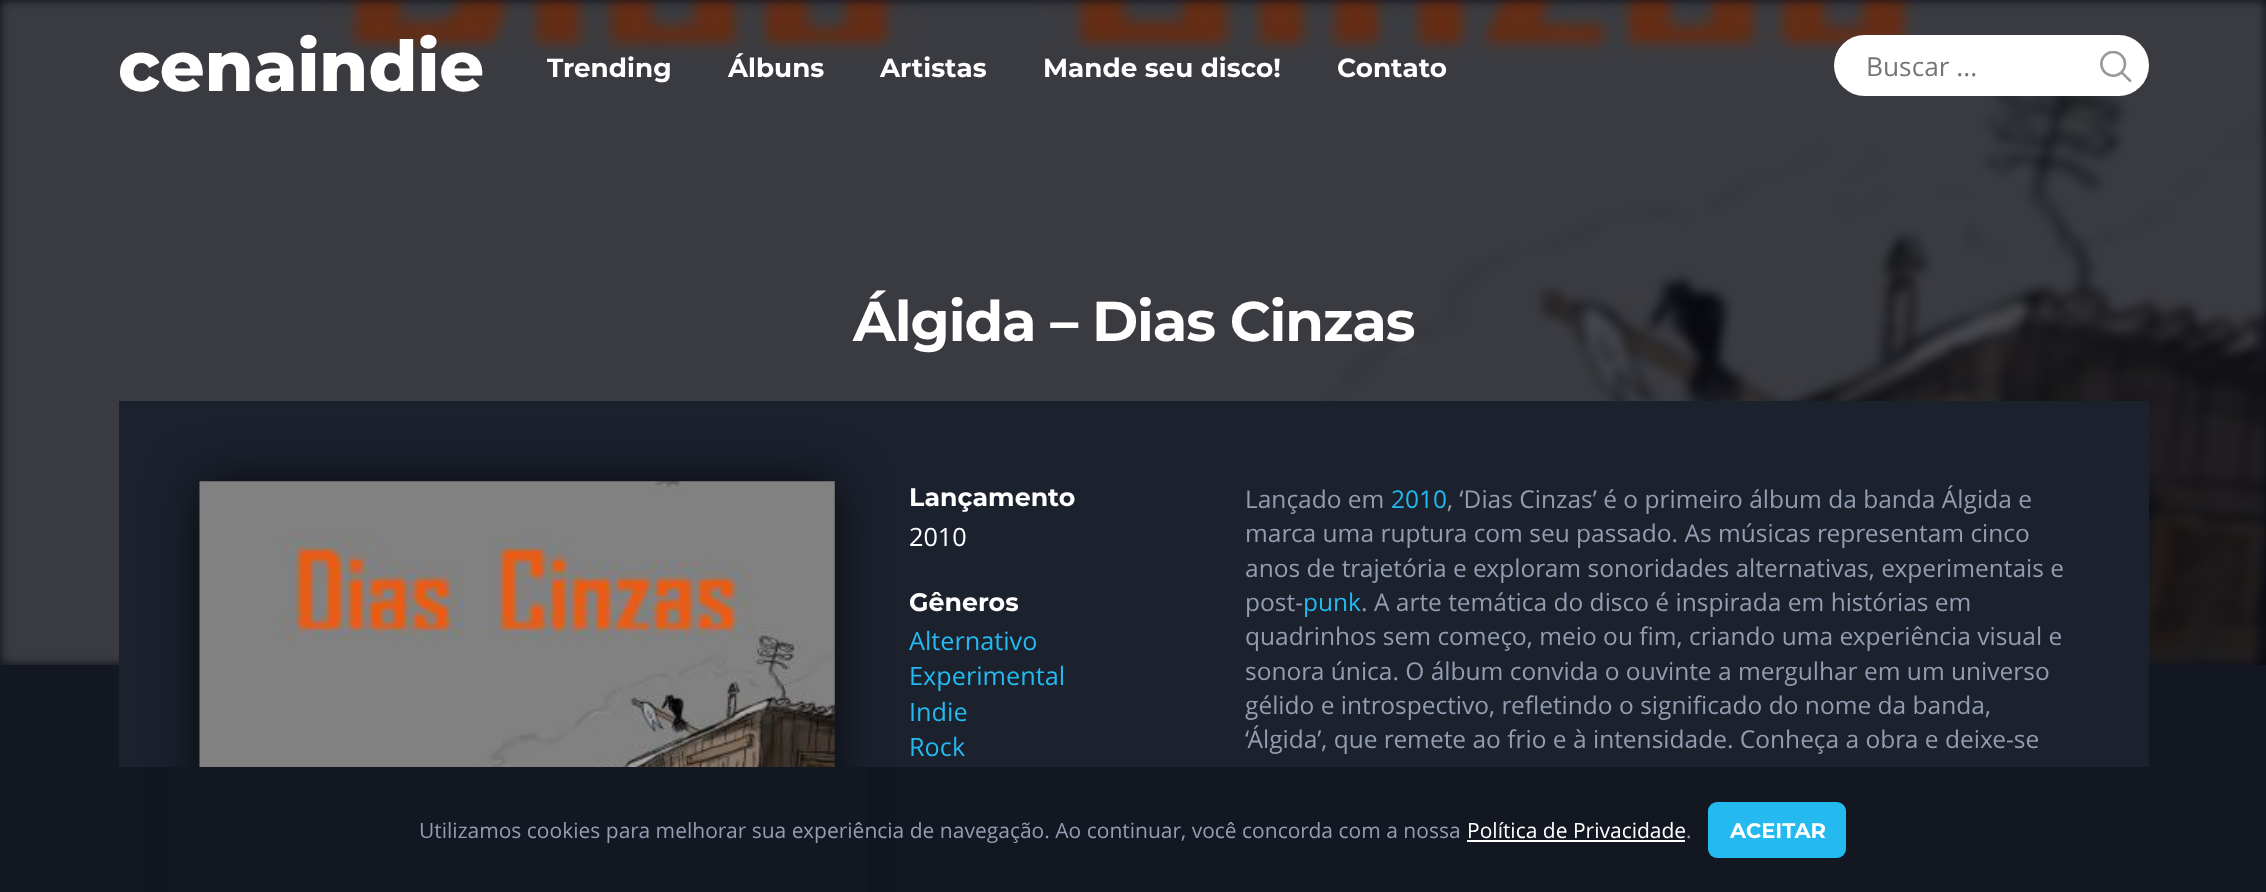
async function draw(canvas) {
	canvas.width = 2266;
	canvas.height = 892;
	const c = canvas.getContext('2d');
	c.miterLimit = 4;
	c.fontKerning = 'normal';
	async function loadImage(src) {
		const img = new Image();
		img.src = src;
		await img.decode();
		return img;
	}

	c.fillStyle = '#131722';
	c.fillRect(0, 0, 2266, 892);
	c.fillStyle = '#0c0e17';
	c.fillRect(0, 0, 2266, 665);
	c.drawImage(await loadImage('img1.png'), 0, 0, 2266, 665);
	c.font = '800 70px Montserrat';
	c.fillStyle = '#fff';
	c.fillText('cenaindie', 118, 91);
	c.font = 'bold 26.25px Montserrat';
	for (const [text, x, y] of [
		['Trending', 547, 77],
		['Álbuns', 728, 77],
		['Artistas', 880, 77],
		['Mande seu disco!', 1043, 77],
		['Contato', 1337, 77],
	]) {
		c.fillText(text, x, y);
	}
	c.beginPath();
	c.roundRect(1834, 35, 315, 61, 30.5);
	c.fill();
	c.font = '26.25px Open Sans';
	c.fillStyle = '#757575';
	c.fillText('Buscar ...', 1866, 76);
	c.drawImage(await loadImage('img2.png'), 2100, 51, 32, 31);
	c.letterSpacing = '-1.1px';
	c.font = 'bold 56px Montserrat';
	c.fillStyle = '#fff';
	c.fillText('Álgida – Dias Cinzas', 853, 341);
	c.fillStyle = '#1c212e';
	c.fillRect(119, 401, 2030, 366);
	c.fillStyle = '#000000b3';
	c.filter = 'blur(26px)';
	c.beginPath();
	c.rect(200, 481, 635, 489);
	c.fill();
	c.filter = 'none';
	c.drawImage(await loadImage('img3.png'), 199, 481, 636, 286);
	c.letterSpacing = '0px';
	c.font = 'bold 25.25px Montserrat';
	c.fillStyle = '#fff';
	c.fillText('Lançamento', 909, 506);
	c.font = '25.25px Open Sans';
	c.fillText('2010', 909, 546);
	c.font = 'bold 25.25px Montserrat';
	c.fillText('Gêneros', 909, 611);
	c.font = '25.25px Open Sans';
	c.fillStyle = '#24baef';
	for (const [text, x, y] of [
		['Alternativo', 909, 650],
		['Experimental', 909, 685],
		['Indie', 909, 721],
		['Rock', 909, 756],
	]) {
		c.fillText(text, x, y);
	}
	c.font = '24.5px Open Sans';
	c.fillStyle = '#949cb0';
	c.fillText('Lançado em', 1245, 508);
	c.fillStyle = '#24baef';
	c.fillText('2010', 1391, 508);
	c.fillStyle = '#949cb0';
	for (const [text, x, y] of [
		[', ‘Dias Cinzas’ é o primeiro álbum da banda Álgida e', 1447, 508],
		['marca uma ruptura com seu passado. As músicas representam cinco', 1245, 542],
		['anos de trajetória e exploram sonoridades alternativas, experimentais e', 1245, 577],
		['post-', 1245, 611],
	]) {
		c.fillText(text, x, y);
	}
	c.fillStyle = '#24baef';
	c.fillText('punk', 1303, 611);
	c.fillStyle = '#949cb0';
	for (const [text, x, y] of [
		['. A arte temática do disco é inspirada em histórias em', 1361, 611],
		['quadrinhos sem começo, meio ou fim, criando uma experiência visual e', 1245, 645],
		['sonora única. O álbum convida o ouvinte a mergulhar em um universo', 1245, 680],
		['gélido e introspectivo, refletindo o significado do nome da banda,', 1245, 714],
		['‘Álgida’, que remete ao frio e à intensidade. Conheça a obra e deixe-se', 1245, 748],
	]) {
		c.fillText(text, x, y);
	}
	c.fillStyle = '#131722';
	c.fillRect(168, 767, 699, 125);
	c.font = '21px Open Sans';
	c.fillStyle = '#949cb0';
	c.fillText('Utilizamos cookies para melhorar sua experiência de navegação. Ao continuar, você concorda com a nossa', 419, 838);
	c.fillStyle = '#fff';
	c.fillText('Política de Privacidade', 1467, 838);
	c.fillRect(1467, 840, 218, 2);
	c.fillStyle = '#949cb0';
	c.fillText('.', 1686, 838);
	c.fillStyle = '#24baef';
	c.beginPath();
	c.roundRect(1708, 802, 138, 56, 9);
	c.fill();
	c.font = 'bold 21px Montserrat';
	c.fillStyle = '#fff';
	c.fillText('ACEITAR', 1730, 838);
}

draw(document.querySelector('canvas'));
